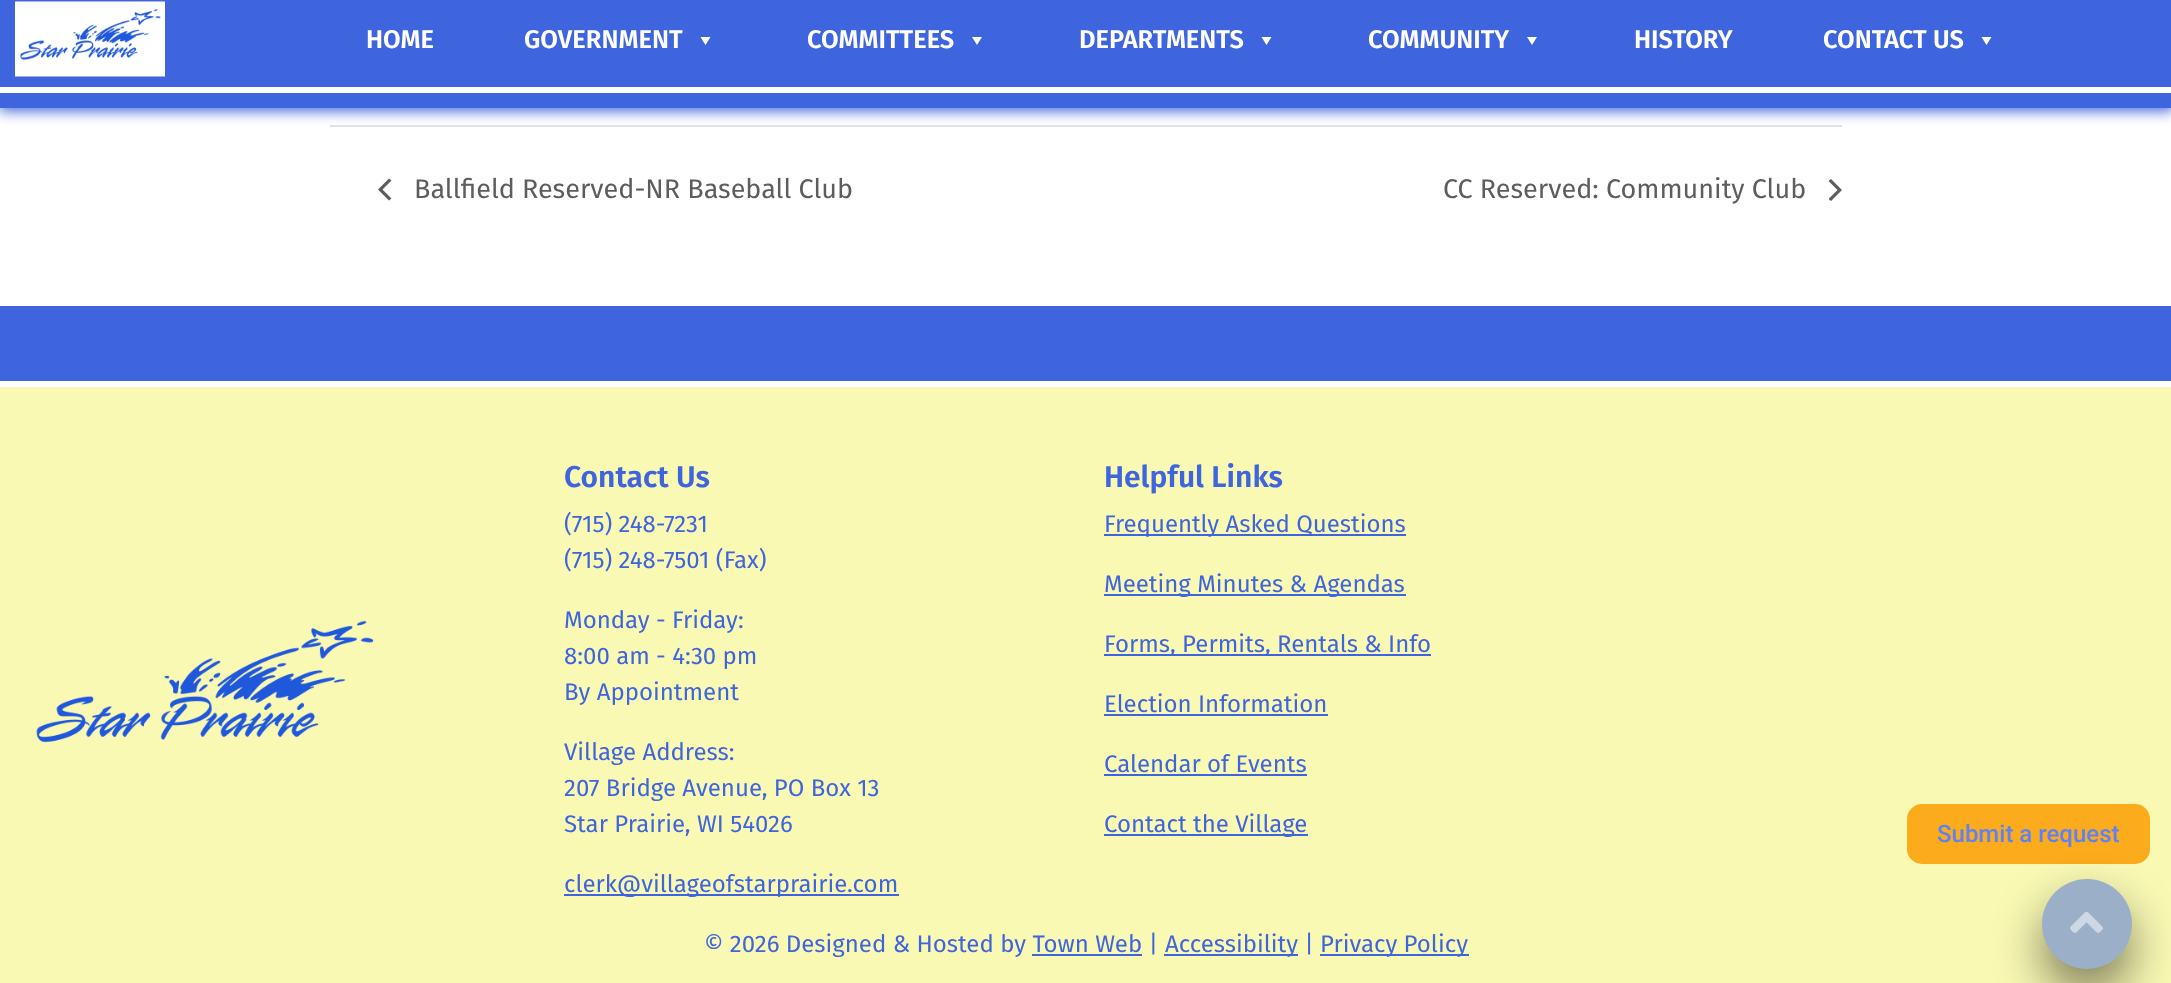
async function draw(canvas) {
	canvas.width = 2171;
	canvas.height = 983;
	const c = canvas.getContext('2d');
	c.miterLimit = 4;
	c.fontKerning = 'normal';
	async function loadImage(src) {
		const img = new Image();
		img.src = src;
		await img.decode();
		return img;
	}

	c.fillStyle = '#fff';
	c.fillRect(0, 0, 2171, 983);
	c.fillStyle = '#e4e4e4';
	c.fillRect(330, 125, 1512, 2);
	c.fillStyle = '#3e64de';
	c.filter = 'blur(7px)';
	c.beginPath();
	c.rect(-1, 0, 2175, 111);
	c.fill();
	c.filter = 'none';
	c.fillRect(0, 0, 2171, 108);
	c.drawImage(await loadImage('img1.png'), 15, 1, 150, 76);
	c.font = '600 25.5px Fira Sans';
	c.fillStyle = '#fff';
	c.fillText('HOME', 366, 48);
	c.fillText('GOVERNMENT', 524, 48);
	c.beginPath();
	c.moveTo(710.5, 37);
	c.lineTo(705.5, 45);
	c.lineTo(700.5, 37);
	c.closePath();
	c.fill();
	c.fillText('COMMITTEES', 807, 48);
	c.beginPath();
	c.moveTo(982, 37);
	c.lineTo(977, 45);
	c.lineTo(972, 37);
	c.closePath();
	c.fill();
	c.fillText('DEPARTMENTS', 1079, 48);
	c.beginPath();
	c.moveTo(1271.5, 37);
	c.lineTo(1266.5, 45);
	c.lineTo(1261.5, 37);
	c.closePath();
	c.fill();
	c.fillText('COMMUNITY', 1368, 48);
	c.beginPath();
	c.moveTo(1537, 37);
	c.lineTo(1532, 45);
	c.lineTo(1527, 37);
	c.closePath();
	c.fill();
	c.fillText('HISTORY', 1634, 48);
	c.fillText('CONTACT US', 1823, 48);
	c.beginPath();
	c.moveTo(1991.5, 37);
	c.lineTo(1986.5, 45);
	c.lineTo(1981.5, 37);
	c.closePath();
	c.fill();
	c.fillRect(0, 87, 2171, 6);
	c.fillStyle = '#5d5d5d';
	c.beginPath();
	c.moveTo(391.5, 198.5);
	c.lineTo(389, 200.5);
	c.lineTo(378, 189.5);
	c.lineTo(389, 178.5);
	c.lineTo(391.5, 180.5);
	c.lineTo(382.5, 189.5);
	c.closePath();
	c.fill();
	c.font = '27px Fira Sans';
	c.fillText('Ballfield Reserved-NR Baseball Club', 414, 198);
	c.fillText('CC Reserved: Community Club', 1443, 198);
	c.save();
	c.beginPath();
	c.rect(1829, 179, 13, 22);
	c.clip();
	c.beginPath();
	c.moveTo(1828.5, 181);
	c.lineTo(1831, 179);
	c.lineTo(1842, 190);
	c.lineTo(1831, 201);
	c.lineTo(1828.5, 199);
	c.lineTo(1837.5, 190);
	c.closePath();
	c.fill();
	c.restore();
	c.fillStyle = '#f9f9b4';
	c.fillRect(0, 387, 2171, 596);
	c.fillStyle = '#3e64de';
	c.fillRect(0, 306, 2171, 75);
	c.drawImage(await loadImage('img2.png'), 36, 620, 338, 123);
	c.font = '600 30px Fira Sans';
	c.fillText('Contact Us', 564, 487);
	c.font = '24px Fira Sans';
	for (const [text, x, y] of [
		['(715) 248-7231', 564, 532],
		['(715) 248-7501 (Fax)', 564, 568],
		['Monday - Friday:', 564, 628],
		['8:00 am - 4:30 pm', 564, 664],
		['By Appointment', 564, 700],
		['Village Address:', 564, 760],
		['207 Bridge Avenue, PO Box 13', 564, 796],
		['Star Prairie, WI 54026', 564, 832],
	]) {
		c.fillText(text, x, y);
	}
	c.fillRect(564, 894, 335, 2);
	c.fillText('clerk@villageofstarprairie.com', 564, 892);
	c.font = '600 30px Fira Sans';
	c.fillText('Helpful Links', 1104, 487);
	c.fillRect(1104, 534, 302, 2);
	c.font = '24px Fira Sans';
	c.fillText('Frequently Asked Questions', 1104, 532);
	c.fillRect(1104, 594, 302, 2);
	c.fillText('Meeting Minutes & Agendas', 1104, 592);
	c.fillRect(1104, 654, 327, 2);
	c.fillText('Forms, Permits, Rentals & Info', 1104, 652);
	c.fillText('Election Information', 1104, 712);
	c.fillRect(1104, 714, 224, 2);
	c.fillText('Calendar of Events', 1104, 772);
	c.fillRect(1104, 774, 203, 2);
	c.fillRect(1104, 834, 204, 2);
	c.fillText('Contact the Village', 1104, 832);
	c.fillText('© 2026 Designed & Hosted by Town Web |', 704, 952);
	c.fillRect(1164, 954, 134, 2);
	c.fillText('Accessibility |', 1165, 952);
	c.fillRect(1320, 954, 149, 2);
	c.fillText('Privacy Policy', 1320, 952);
	c.fillRect(1032, 954, 110, 2);
	c.fillStyle = '#fcab1c';
	c.beginPath();
	c.roundRect(1907, 804, 243, 60, 15);
	c.fill();
	c.font = '500 24px Roboto';
	c.fillStyle = '#5e81f4';
	c.fillText('Submit a request', 1937, 842);
	c.fillStyle = '#00000080';
	c.filter = 'blur(24px)';
	c.beginPath();
	c.roundRect(2042, 903, 90, 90, 45);
	c.fill();
	c.filter = 'none';
	c.fillStyle = '#9cafc9';
	c.beginPath();
	c.arc(2087, 924, 45, 0, 2 * Math.PI);
	c.fill();
	c.drawImage(await loadImage('img3.png'), 2070, 911, 33, 22);
}

draw(document.querySelector('canvas'));
